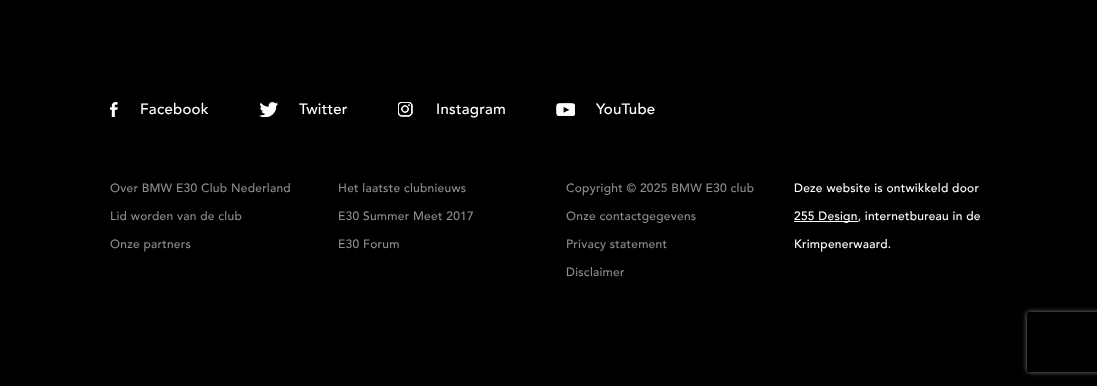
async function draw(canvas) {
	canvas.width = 1097;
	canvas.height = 386;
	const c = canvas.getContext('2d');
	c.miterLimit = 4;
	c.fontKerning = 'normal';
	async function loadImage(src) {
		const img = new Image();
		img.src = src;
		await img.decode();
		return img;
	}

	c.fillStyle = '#000';
	c.fillRect(0, 0, 1097, 386);
	c.drawImage(await loadImage('img1.png'), 110, 102, 8, 15);
	c.letterSpacing = '0.25px';
	c.font = '500 15px Avenir';
	c.fillStyle = '#fff';
	c.fillText('Facebook', 140, 114);
	c.drawImage(await loadImage('img2.png'), 259, 102, 19, 15);
	c.fillText('Twitter', 299, 114);
	c.drawImage(await loadImage('img3.png'), 398, 102, 15, 15);
	c.fillText('Instagram', 436, 114);
	c.drawImage(await loadImage('img4.png'), 556, 103, 19, 13);
	c.fillText('YouTube', 596, 114);
	c.font = '500 12px Avenir';
	c.fillStyle = '#8d8d8d';
	for (const [text, x, y] of [
		['Over BMW E30 Club Nederland', 110, 192],
		['Lid worden van de club', 110, 220],
		['Onze partners', 110, 248],
		['Het laatste clubnieuws', 338, 192],
		['E30 Summer Meet 2017', 338, 220],
		['E30 Forum', 338, 248],
		['Copyright © 2025 BMW E30 club', 566, 192],
		['Onze contactgegevens', 566, 220],
		['Privacy statement', 566, 248],
		['Disclaimer', 566, 276],
	]) {
		c.fillText(text, x, y);
	}
	c.fillStyle = '#fff';
	c.fillText('Deze website is ontwikkeld door', 794, 192);
	c.fillRect(794, 221, 64, 1);
	c.fillText('255 Design, internetbureau in de', 794, 220);
	c.fillText('Krimpenerwaard.', 794, 248);
	c.save();
	c.beginPath();
	c.moveTo(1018, 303);
	c.lineTo(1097, 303);
	c.lineTo(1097, 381);
	c.lineTo(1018, 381);
	c.closePath();
	c.moveTo(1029, 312);
	c.lineTo(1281, 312);
	c.bezierCurveTo(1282, 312, 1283, 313, 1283, 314);
	c.lineTo(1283, 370);
	c.bezierCurveTo(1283, 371, 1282, 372, 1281, 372);
	c.lineTo(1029, 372);
	c.bezierCurveTo(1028, 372, 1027, 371, 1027, 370);
	c.lineTo(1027, 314);
	c.bezierCurveTo(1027, 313, 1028, 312, 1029, 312);
	c.closePath();
	c.clip('evenodd');
	c.fillStyle = '#808080';
	c.filter = 'blur(2.5px)';
	c.beginPath();
	c.roundRect(1027, 312, 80, 60, 2);
	c.fill();
	c.filter = 'none';
	c.restore();
}

draw(document.querySelector('canvas'));
